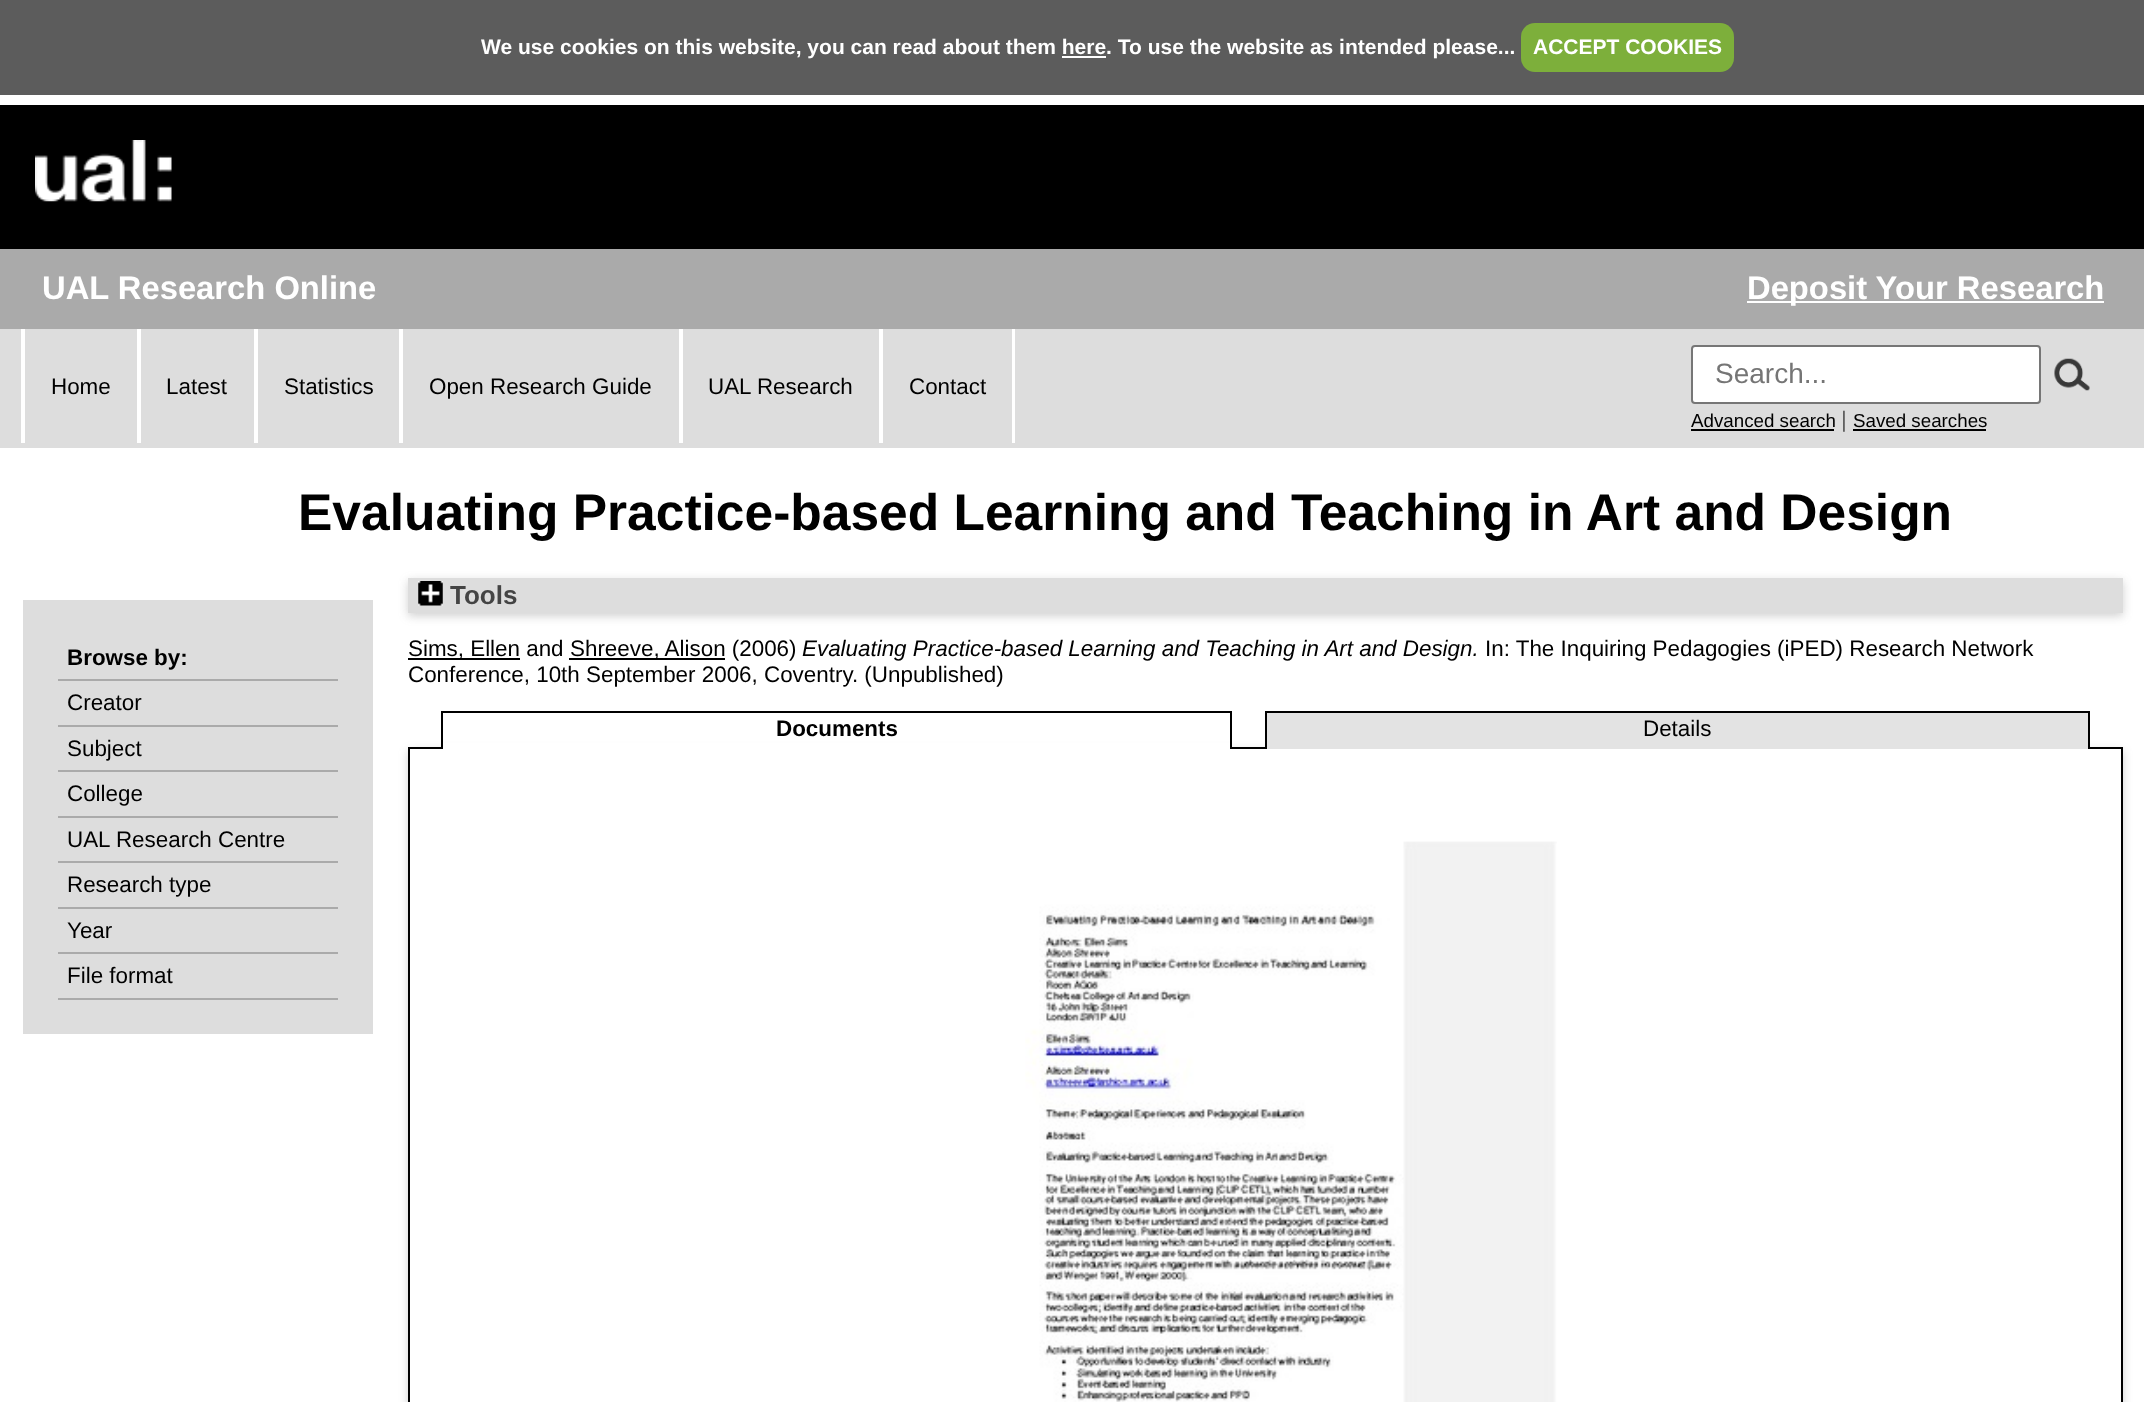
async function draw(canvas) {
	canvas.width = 2144;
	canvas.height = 1402;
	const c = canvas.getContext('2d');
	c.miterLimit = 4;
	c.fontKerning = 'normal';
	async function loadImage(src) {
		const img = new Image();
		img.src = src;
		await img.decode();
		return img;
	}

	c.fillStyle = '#fff';
	c.fillRect(0, 0, 2144, 1402);
	c.fillStyle = '#5c5c5c';
	c.fillRect(0, 0, 2144, 95);
	c.font = 'bold 21px Liberation Sans';
	c.fillStyle = '#fff';
	c.fillText('We use cookies on this website, you can read about them here. To use the website as intended please...', 481, 54);
	c.fillStyle = '#7daf3b';
	c.beginPath();
	c.roundRect(1521, 23, 213, 49, 14);
	c.fill();
	c.fillStyle = '#fff';
	c.fillText('ACCEPT COOKIES', 1533, 54);
	c.fillRect(1062, 56, 44, 2);
	c.fillStyle = '#000';
	c.fillRect(0, 105, 2144, 144);
	c.drawImage(await loadImage('img1.png'), 35, 140, 137, 62);
	c.fillStyle = '#aaa';
	c.fillRect(0, 249, 2144, 80);
	c.font = 'bold 32.75px Liberation Sans';
	c.fillStyle = '#fff';
	c.fillText('UAL Research Online', 42, 299);
	c.fillRect(1747, 301, 357, 2);
	c.fillText('Deposit Your Research', 1747, 299);
	c.fillStyle = '#ddd';
	c.fillRect(0, 329, 2144, 119);
	c.fillStyle = '#fff';
	c.fillRect(21, 329, 4, 114);
	c.font = '22.4px Liberation Sans';
	c.fillStyle = '#000';
	c.fillText('Home', 51, 394);
	c.fillStyle = '#fff';
	c.fillRect(137, 329, 4, 114);
	c.fillStyle = '#000';
	c.fillText('Latest', 166, 394);
	c.fillStyle = '#fff';
	c.fillRect(254, 329, 4, 114);
	c.fillStyle = '#000';
	c.fillText('Statistics', 284, 394);
	c.fillStyle = '#fff';
	c.fillRect(399, 329, 4, 114);
	c.fillStyle = '#000';
	c.fillText('Open Research Guide', 429, 394);
	c.fillStyle = '#fff';
	c.fillRect(679, 329, 4, 114);
	c.fillStyle = '#000';
	c.fillText('UAL Research', 708, 394);
	c.fillStyle = '#fff';
	c.fillRect(1012, 329, 3, 114);
	c.fillRect(879, 329, 4, 114);
	c.fillStyle = '#000';
	c.fillText('Contact', 909, 394);
	c.fillStyle = '#fff';
	c.beginPath();
	c.roundRect(1692, 346, 348, 57, 3);
	c.fill();
	c.strokeStyle = '#767676';
	c.lineWidth = 2;
	c.stroke();
	c.font = '28px Liberation Sans';
	c.fillStyle = '#757575';
	c.fillText('Search...', 1715, 383);
	c.drawImage(await loadImage('img2.png'), 2054, 358, 36, 33);
	c.font = '18.75px Liberation Sans';
	c.fillStyle = '#000';
	c.fillText('Advanced search', 1691, 427);
	c.fillRect(1691, 429, 143, 2);
	c.font = '22.4px Liberation Sans';
	c.fillStyle = '#606060';
	c.fillText('|', 1841, 427);
	c.font = '18.75px Liberation Sans';
	c.fillStyle = '#000';
	c.fillText('Saved searches', 1853, 427);
	c.fillRect(1853, 429, 133, 2);
	c.font = 'bold 51.5px Liberation Sans';
	c.fillText('Evaluating Practice-based Learning and Teaching in Art and Design', 298, 530);
	c.fillStyle = '#ddd';
	c.fillRect(23, 600, 350, 434);
	c.fillStyle = '#aaa';
	c.fillRect(58, 679, 280, 2);
	c.font = 'bold 22.4px Liberation Sans';
	c.fillStyle = '#000';
	c.fillText('Browse by:', 67, 665);
	c.fillStyle = '#aaa';
	c.fillRect(58, 725, 280, 2);
	c.font = '22.4px Liberation Sans';
	c.fillStyle = '#000';
	c.fillText('Creator', 67, 710);
	c.fillStyle = '#aaa';
	c.fillRect(58, 770, 280, 2);
	c.fillStyle = '#000';
	c.fillText('Subject', 67, 756);
	c.fillStyle = '#aaa';
	c.fillRect(58, 816, 280, 2);
	c.fillStyle = '#000';
	c.fillText('College', 67, 801);
	c.fillStyle = '#aaa';
	c.fillRect(58, 861, 280, 2);
	c.fillStyle = '#000';
	c.fillText('UAL Research Centre', 67, 847);
	c.fillStyle = '#aaa';
	c.fillRect(58, 907, 280, 2);
	c.fillStyle = '#000';
	c.fillText('Research type', 67, 892);
	c.fillStyle = '#aaa';
	c.fillRect(58, 952, 280, 2);
	c.fillStyle = '#000';
	c.fillText('Year', 67, 938);
	c.fillStyle = '#aaa';
	c.fillRect(58, 998, 280, 2);
	c.fillStyle = '#000';
	c.fillText('File format', 67, 983);
	c.fillStyle = '#6464644d';
	c.filter = 'blur(5px)';
	c.beginPath();
	c.rect(408, 581, 1715, 35);
	c.fill();
	c.filter = 'none';
	c.fillStyle = '#ddd';
	c.fillRect(408, 578, 1715, 35);
	c.drawImage(await loadImage('img3.png'), 418, 581, 25, 25);
	c.font = 'bold 26px Liberation Sans';
	c.fillStyle = '#444';
	c.fillText('Tools', 450, 604);
	c.fillStyle = '#000';
	c.fillRect(408, 658, 112, 2);
	c.font = '22.4px Liberation Sans';
	c.fillText('Sims, Ellen and', 408, 656);
	c.fillRect(569, 658, 156, 2);
	c.fillText('Shreeve, Alison (2006)', 570, 656);
	c.font = 'italic 22.4px Liberation Sans';
	c.fillText('Evaluating Practice-based Learning and Teaching in Art and Design.', 802, 656);
	c.font = '22.4px Liberation Sans';
	c.fillText('In: The Inquiring Pedagogies (iPED) Research Network', 1485, 656);
	c.fillText('Conference, 10th September 2006, Coventry. (Unpublished)', 408, 682);
	c.fillStyle = '#6464644d';
	c.filter = 'blur(5px)';
	c.beginPath();
	c.rect(408, 751, 1715, 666);
	c.fill();
	c.filter = 'none';
	for (const [x, y, w, h, color] of [
		[408, 747, 2, 655, '#000'],
		[408, 747, 857, 2, '#000'],
		[443, 743, 787, 6, '#fff'],
		[441, 711, 791, 2, '#000'],
		[1230, 711, 2, 38, '#000'],
		[441, 711, 2, 38, '#000'],
	]) {
		c.fillStyle = color;
		c.fillRect(x, y, w, h);
	}
	c.font = 'bold 22.4px Liberation Sans';
	c.fillText('Documents', 776, 736);
	for (const [x, y, w, h, color] of [
		[2121, 747, 2, 655, '#000'],
		[2090, 747, 33, 2, '#000'],
		[1267, 713, 821, 36, '#e3e3e3'],
		[1265, 711, 825, 2, '#000'],
		[2088, 711, 2, 38, '#000'],
		[1265, 711, 2, 38, '#000'],
	]) {
		c.fillStyle = color;
		c.fillRect(x, y, w, h);
	}
	c.font = '22.4px Liberation Sans';
	c.fillText('Details', 1643, 736);
	c.fillStyle = '#fff';
	c.fillRect(410, 749, 1711, 653);
	c.drawImage(await loadImage('img4.png'), 1025, 841, 532, 561);
}

draw(document.querySelector('canvas'));
